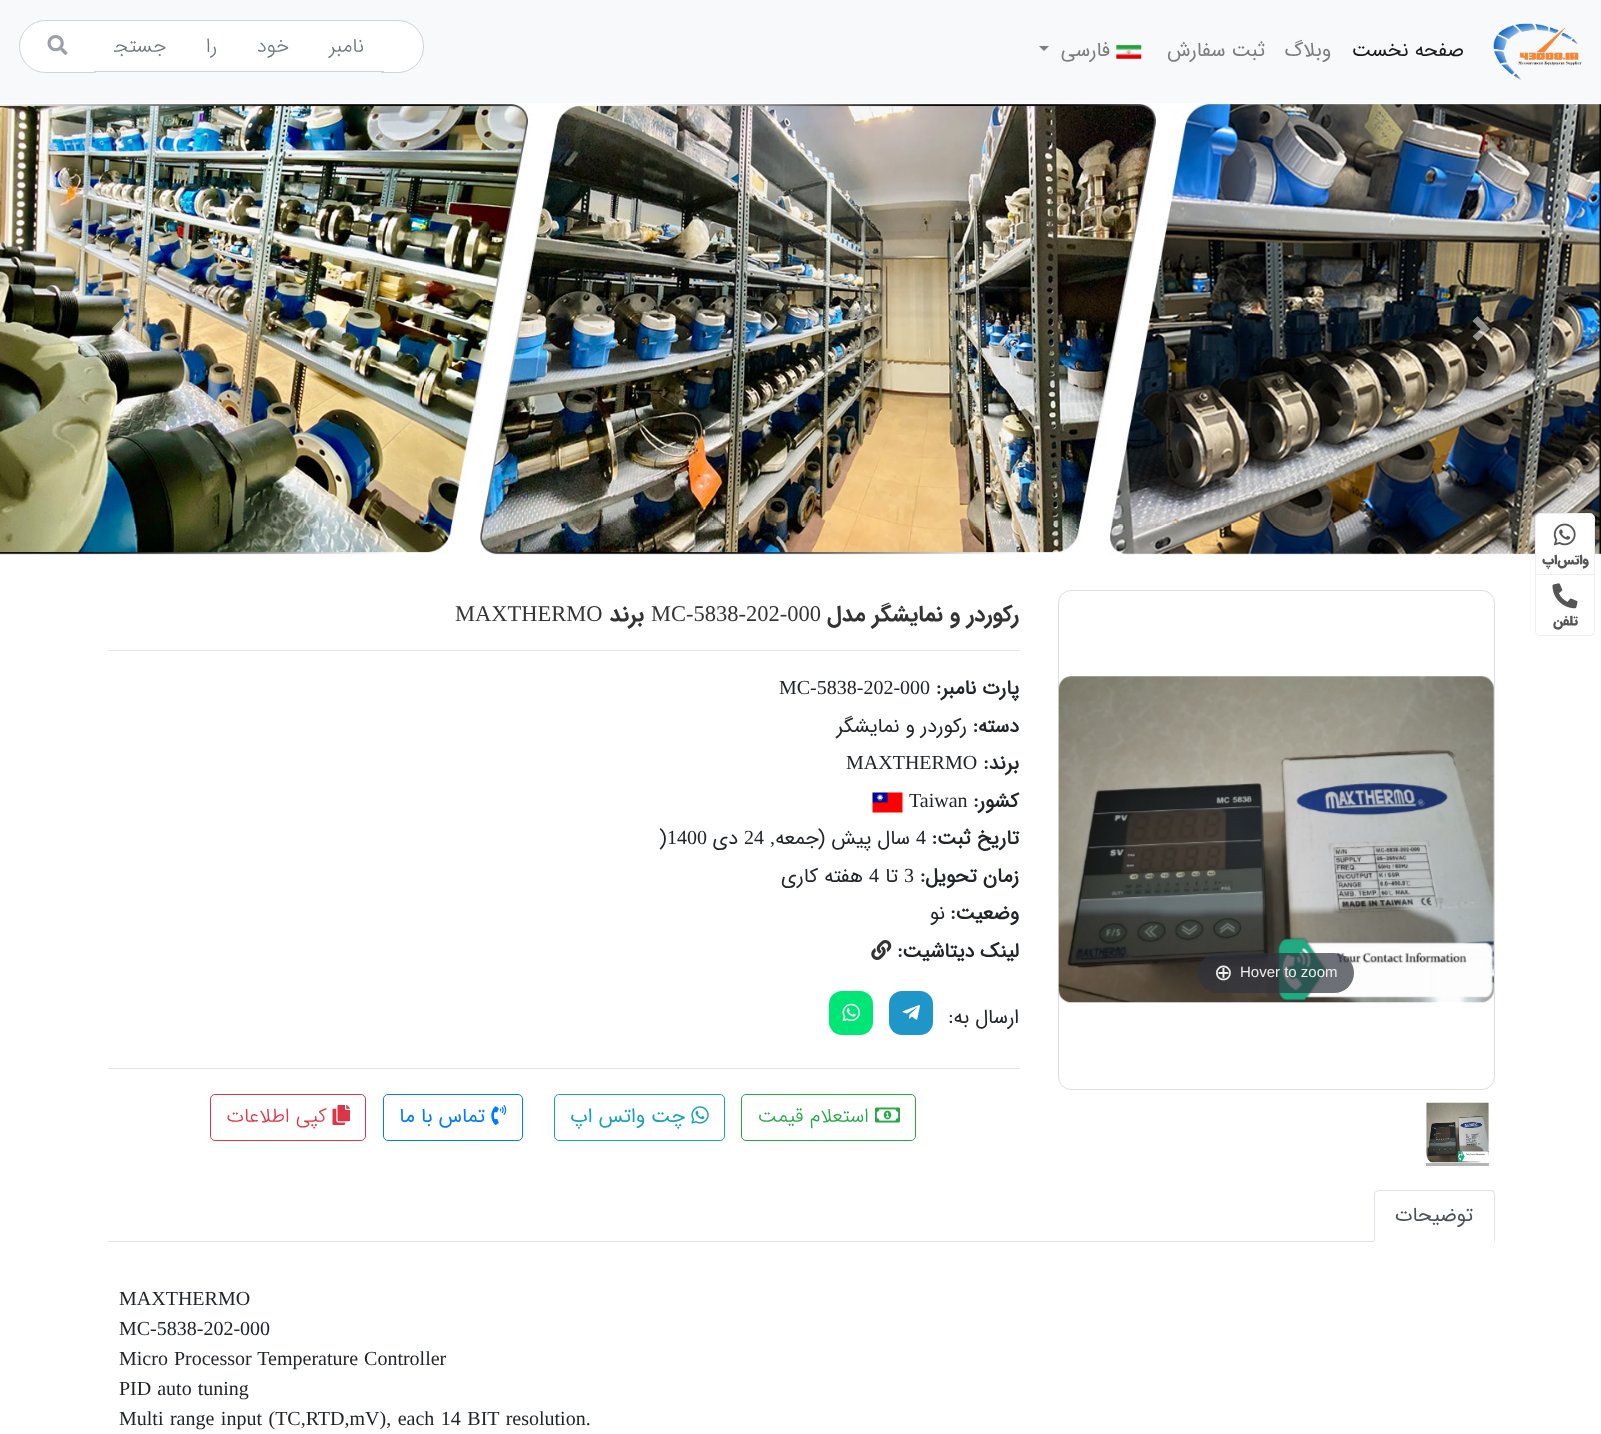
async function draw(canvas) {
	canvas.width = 1601;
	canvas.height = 1434;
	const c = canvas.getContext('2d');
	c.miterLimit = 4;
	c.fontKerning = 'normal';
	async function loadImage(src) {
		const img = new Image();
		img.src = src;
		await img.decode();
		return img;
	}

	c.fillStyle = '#fff';
	c.fillRect(0, 0, 1601, 1434);
	c.fillStyle = '#f8f9fa';
	c.fillRect(0, 0, 1601, 103);
	c.drawImage(await loadImage('img1.png'), 1493, 23, 89, 57);
	c.direction = 'rtl';
	c.font = '20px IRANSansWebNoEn';
	c.fillStyle = '#191919';
	c.fillText('صفحه نخست', 1464, 56);
	c.fillStyle = '#7c7d7d';
	c.fillText('وبلاگ', 1331, 56);
	c.fillText('ثبت سفارش', 1265, 56);
	c.drawImage(await loadImage('img2.png'), 1116, 44, 26, 15);
	c.fillText('فارسی', 1110, 56);
	c.beginPath();
	c.moveTo(1039, 46);
	c.lineTo(1049, 46);
	c.lineTo(1044, 51);
	c.closePath();
	c.fill();
	c.fillStyle = '#fff';
	c.beginPath();
	c.roundRect(381.5, 20.5, 42, 52, [0, 25.5, 25.5, 0]);
	c.fill();
	c.strokeStyle = '#ced4da';
	c.stroke();
	c.beginPath();
	c.roundRect(19.5, 20.5, 76, 52, [26, 0, 0, 26]);
	c.fill();
	c.stroke();
	for (const [x, y, w, h, color] of [
		[95, 21, 287, 50, '#fff'],
		[94, 20, 290, 1, '#ced4da'],
		[94, 71, 290, 1, '#ced4da'],
	]) {
		c.fillStyle = color;
		c.fillRect(x, y, w, h);
	}
	c.save();
	c.beginPath();
	c.rect(114, 31, 250, 32);
	c.clip();
	c.wordSpacing = '33.5px';
	c.font = '300 20px IRANSansWebNoEn';
	c.fillStyle = '#6c757d';
	c.fillText('نامبر خود را جستجو', 364, 52);
	c.restore();
	c.drawImage(await loadImage('img3.png'), 47, 35, 21, 20);
	c.drawImage(await loadImage('img4.png'), 0, 103, 1601, 452);
	c.fillStyle = '#ffffff80';
	c.beginPath();
	c.moveTo(1477.5, 316);
	c.lineTo(1472.5, 321);
	c.lineTo(1480.5, 329);
	c.lineTo(1472.5, 336.5);
	c.lineTo(1477.5, 341);
	c.lineTo(1490, 329);
	c.closePath();
	c.fill();
	c.beginPath();
	c.moveTo(124, 316);
	c.lineTo(111.5, 329);
	c.lineTo(124, 341);
	c.lineTo(128.5, 336.5);
	c.lineTo(121, 329);
	c.lineTo(128.5, 321);
	c.closePath();
	c.fill();
	c.fillStyle = '#fff';
	c.beginPath();
	c.roundRect(1535.5, 513.5, 59, 122, 4.5);
	c.fill();
	c.strokeStyle = '#eee';
	c.stroke();
	c.drawImage(await loadImage('img5.png'), 1553, 523, 23, 23);
	c.font = '900 13.5px IRANSansWebNoEn';
	c.fillStyle = '#555';
	c.fillText('واتس‌اپ', 1589, 564);
	c.fillStyle = '#eee';
	c.fillRect(1536, 574, 58, 1);
	c.drawImage(await loadImage('img6.png'), 1552, 583, 26, 26);
	c.fillStyle = '#555';
	c.fillText('تلفن', 1578, 625);
	c.beginPath();
	c.roundRect(1058.5, 590.5, 436, 499, 12.5);
	c.strokeStyle = '#ddd';
	c.stroke();
	c.drawImage(await loadImage('img7.png'), 1058, 676, 436, 327);
	c.fillStyle = '#31333db3';
	c.beginPath();
	c.roundRect(1198, 953, 156, 40, 20);
	c.fill();
	c.direction = 'ltr';
	c.font = '15px Liberation Sans';
	c.fillStyle = '#eee';
	c.fillText('Hover to zoom', 1240, 977);
	c.font = '22.5px DejaVu Sans';
	c.fillText('⊕', 1214, 980);
	c.drawImage(await loadImage('img8.png'), 1426, 1102, 63, 61);
	c.fillStyle = '#b4b4b4';
	c.fillRect(1426, 1163, 63, 3);
	c.direction = 'rtl';
	c.font = 'bold 22.5px IRANSansWebNoEn';
	c.fillStyle = '#333';
	c.fillText('رکوردر و نمایشگر مدل', 1019, 621);
	c.direction = 'ltr';
	c.font = '22.5px Liberation Serif';
	c.fillText('MC-5838-202-000', 651, 621);
	c.direction = 'rtl';
	c.font = 'bold 22.5px IRANSansWebNoEn';
	c.fillText('برند', 644, 621);
	c.direction = 'ltr';
	c.font = '22.5px Liberation Serif';
	c.fillText('MAXTHERMO', 455, 621);
	c.fillStyle = '#e6e6e6';
	c.fillRect(108, 650, 912, 1);
	c.direction = 'rtl';
	c.font = 'bold 20px "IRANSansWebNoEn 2"';
	c.fillStyle = '#212529';
	c.fillText('پارت نامبر:', 1019, 694);
	c.direction = 'ltr';
	c.font = '20px Liberation Serif';
	c.fillText('MC-5838-202-000', 779, 694);
	c.direction = 'rtl';
	c.font = 'bold 20px "IRANSansWebNoEn 2"';
	c.fillText('دسته:', 1019, 732);
	c.font = '20px IRANSansWebNoEn';
	c.fillText('رکوردر و نمایشگر', 967, 732);
	c.font = 'bold 20px "IRANSansWebNoEn 2"';
	c.fillText('برند:', 1019, 769);
	c.direction = 'ltr';
	c.font = '20px Liberation Serif';
	c.fillText('MAXTHERMO', 846, 769);
	c.direction = 'rtl';
	c.font = 'bold 20px "IRANSansWebNoEn 2"';
	c.fillText('کشور:', 1019, 807);
	c.direction = 'ltr';
	c.font = '20px Liberation Serif';
	c.fillText('Taiwan', 909, 807);
	c.drawImage(await loadImage('img9.png'), 872, 792, 31, 21);
	c.direction = 'rtl';
	c.font = 'bold 20px "IRANSansWebNoEn 2"';
	c.fillText('تاریخ ثبت:', 1019, 844);
	c.direction = 'ltr';
	c.font = '20px Liberation Serif';
	c.fillText('4', 916, 844);
	c.direction = 'rtl';
	c.font = '20px IRANSansWebNoEn';
	c.fillText('سال پیش (جمعه', 910, 844);
	c.font = '20px Liberation Serif';
	c.fillText(',', 775, 844);
	c.direction = 'ltr';
	c.fillText('24', 744, 844);
	c.direction = 'rtl';
	c.font = '20px IRANSansWebNoEn';
	c.fillText('دی', 738, 844);
	c.direction = 'ltr';
	c.font = '20px Liberation Serif';
	c.fillText('1400', 667, 844);
	c.font = '20px IRANSansWebNoEn';
	c.fillText(')', 659, 844);
	c.direction = 'rtl';
	c.font = 'bold 20px "IRANSansWebNoEn 2"';
	c.fillText('زمان تحویل:', 1019, 882);
	c.direction = 'ltr';
	c.font = '20px Liberation Serif';
	c.fillText('3', 904, 882);
	c.direction = 'rtl';
	c.font = '20px IRANSansWebNoEn';
	c.fillText('تا', 898, 882);
	c.direction = 'ltr';
	c.font = '20px Liberation Serif';
	c.fillText('4', 869, 882);
	c.direction = 'rtl';
	c.font = '20px IRANSansWebNoEn';
	c.fillText('هفته کاری', 863, 882);
	c.font = 'bold 20px "IRANSansWebNoEn 2"';
	c.fillText('وضعیت:', 1019, 919);
	c.font = '20px IRANSansWebNoEn';
	c.fillText('نو', 945, 919);
	c.font = 'bold 20px "IRANSansWebNoEn 2"';
	c.fillText('لینک دیتاشیت:', 1019, 957);
	c.drawImage(await loadImage('img10.png'), 871, 940, 21, 20);
	c.font = '20px IRANSansWebNoEn';
	c.fillText('ارسال به:', 1019, 1023);
	c.fillStyle = '#1e96c8';
	c.beginPath();
	c.roundRect(889, 991, 44, 44, 13);
	c.fill();
	c.drawImage(await loadImage('img11.png'), 902, 1005, 18, 15);
	c.fillStyle = '#00e676';
	c.beginPath();
	c.roundRect(829, 991, 44, 44, 13);
	c.fill();
	c.drawImage(await loadImage('img12.png'), 842, 1003, 18, 19);
	c.fillStyle = '#e6e6e6';
	c.fillRect(108, 1068, 912, 1);
	c.beginPath();
	c.roundRect(741.5, 1094.5, 174, 46, 4.5);
	c.strokeStyle = '#28a745';
	c.stroke();
	c.drawImage(await loadImage('img13.png'), 875, 1107, 25, 16);
	c.font = '300 20px IRANSansWebNoEn';
	c.fillStyle = '#28a745';
	c.fillText('استعلام قیمت', 869, 1122);
	c.beginPath();
	c.roundRect(554.5, 1094.5, 170, 46, 4.5);
	c.strokeStyle = '#17a2b8';
	c.stroke();
	c.drawImage(await loadImage('img14.png'), 691, 1106, 18, 18);
	c.font = '20px IRANSansWebNoEn';
	c.fillStyle = '#17a2b8';
	c.fillText('چت واتس اپ', 685, 1122);
	c.beginPath();
	c.roundRect(383.5, 1094.5, 139, 46, 4.5);
	c.strokeStyle = '#007bff';
	c.stroke();
	c.drawImage(await loadImage('img15.png'), 491, 1105, 16, 20);
	c.fillStyle = '#007bff';
	c.fillText('تماس با ما', 485, 1122);
	c.beginPath();
	c.roundRect(210.5, 1094.5, 155, 46, 4.5);
	c.strokeStyle = '#dc3545';
	c.stroke();
	c.drawImage(await loadImage('img16.png'), 332, 1105, 18, 20);
	c.font = '300 20px IRANSansWebNoEn';
	c.fillStyle = '#dc3545';
	c.fillText('کپی اطلاعات', 327, 1122);
	c.fillStyle = '#dee2e6';
	c.fillRect(108, 1241, 1266, 1);
	c.beginPath();
	c.moveTo(1379, 1190);
	c.bezierCurveTo(1377, 1190, 1376, 1191, 1375, 1192);
	c.lineTo(1376, 1192);
	c.lineTo(1379, 1191);
	c.lineTo(1490, 1191);
	c.lineTo(1493, 1192);
	c.lineTo(1494, 1191);
	c.bezierCurveTo(1493, 1190, 1492, 1190, 1490, 1190);
	c.closePath();
	c.fill();
	c.beginPath();
	c.moveTo(1495, 1242);
	c.lineTo(1495, 1195);
	c.bezierCurveTo(1495, 1194, 1494, 1192, 1494, 1191);
	c.lineTo(1493, 1192);
	c.bezierCurveTo(1494, 1193, 1494, 1194, 1494, 1195);
	c.lineTo(1494, 1241);
	c.closePath();
	c.fill();
	c.beginPath();
	c.moveTo(1375, 1192);
	c.bezierCurveTo(1374, 1192, 1374, 1194, 1374, 1195);
	c.lineTo(1374, 1242);
	c.lineTo(1375, 1241);
	c.lineTo(1375, 1195);
	c.bezierCurveTo(1375, 1194, 1375, 1193, 1376, 1192);
	c.closePath();
	c.fill();
	c.font = '20px IRANSansWebNoEn';
	c.fillStyle = '#495057';
	c.fillText('توضیحات', 1473, 1221);
	c.direction = 'ltr';
	c.font = '20px Liberation Serif';
	c.fillStyle = '#212529';
	c.fillText('MAXTHERMO', 119, 1305);
	c.fillText('MC-5838-202-000', 119, 1335);
	c.wordSpacing = '1px';
	c.fillText('Micro Processor Temperature Controller', 119, 1365);
	c.fillText('PID auto tuning', 119, 1395);
	c.wordSpacing = '1.5px';
	c.fillText('Multi range input (TC,RTD,mV), each 14 BIT resolution.', 119, 1425);
}

draw(document.querySelector('canvas'));
